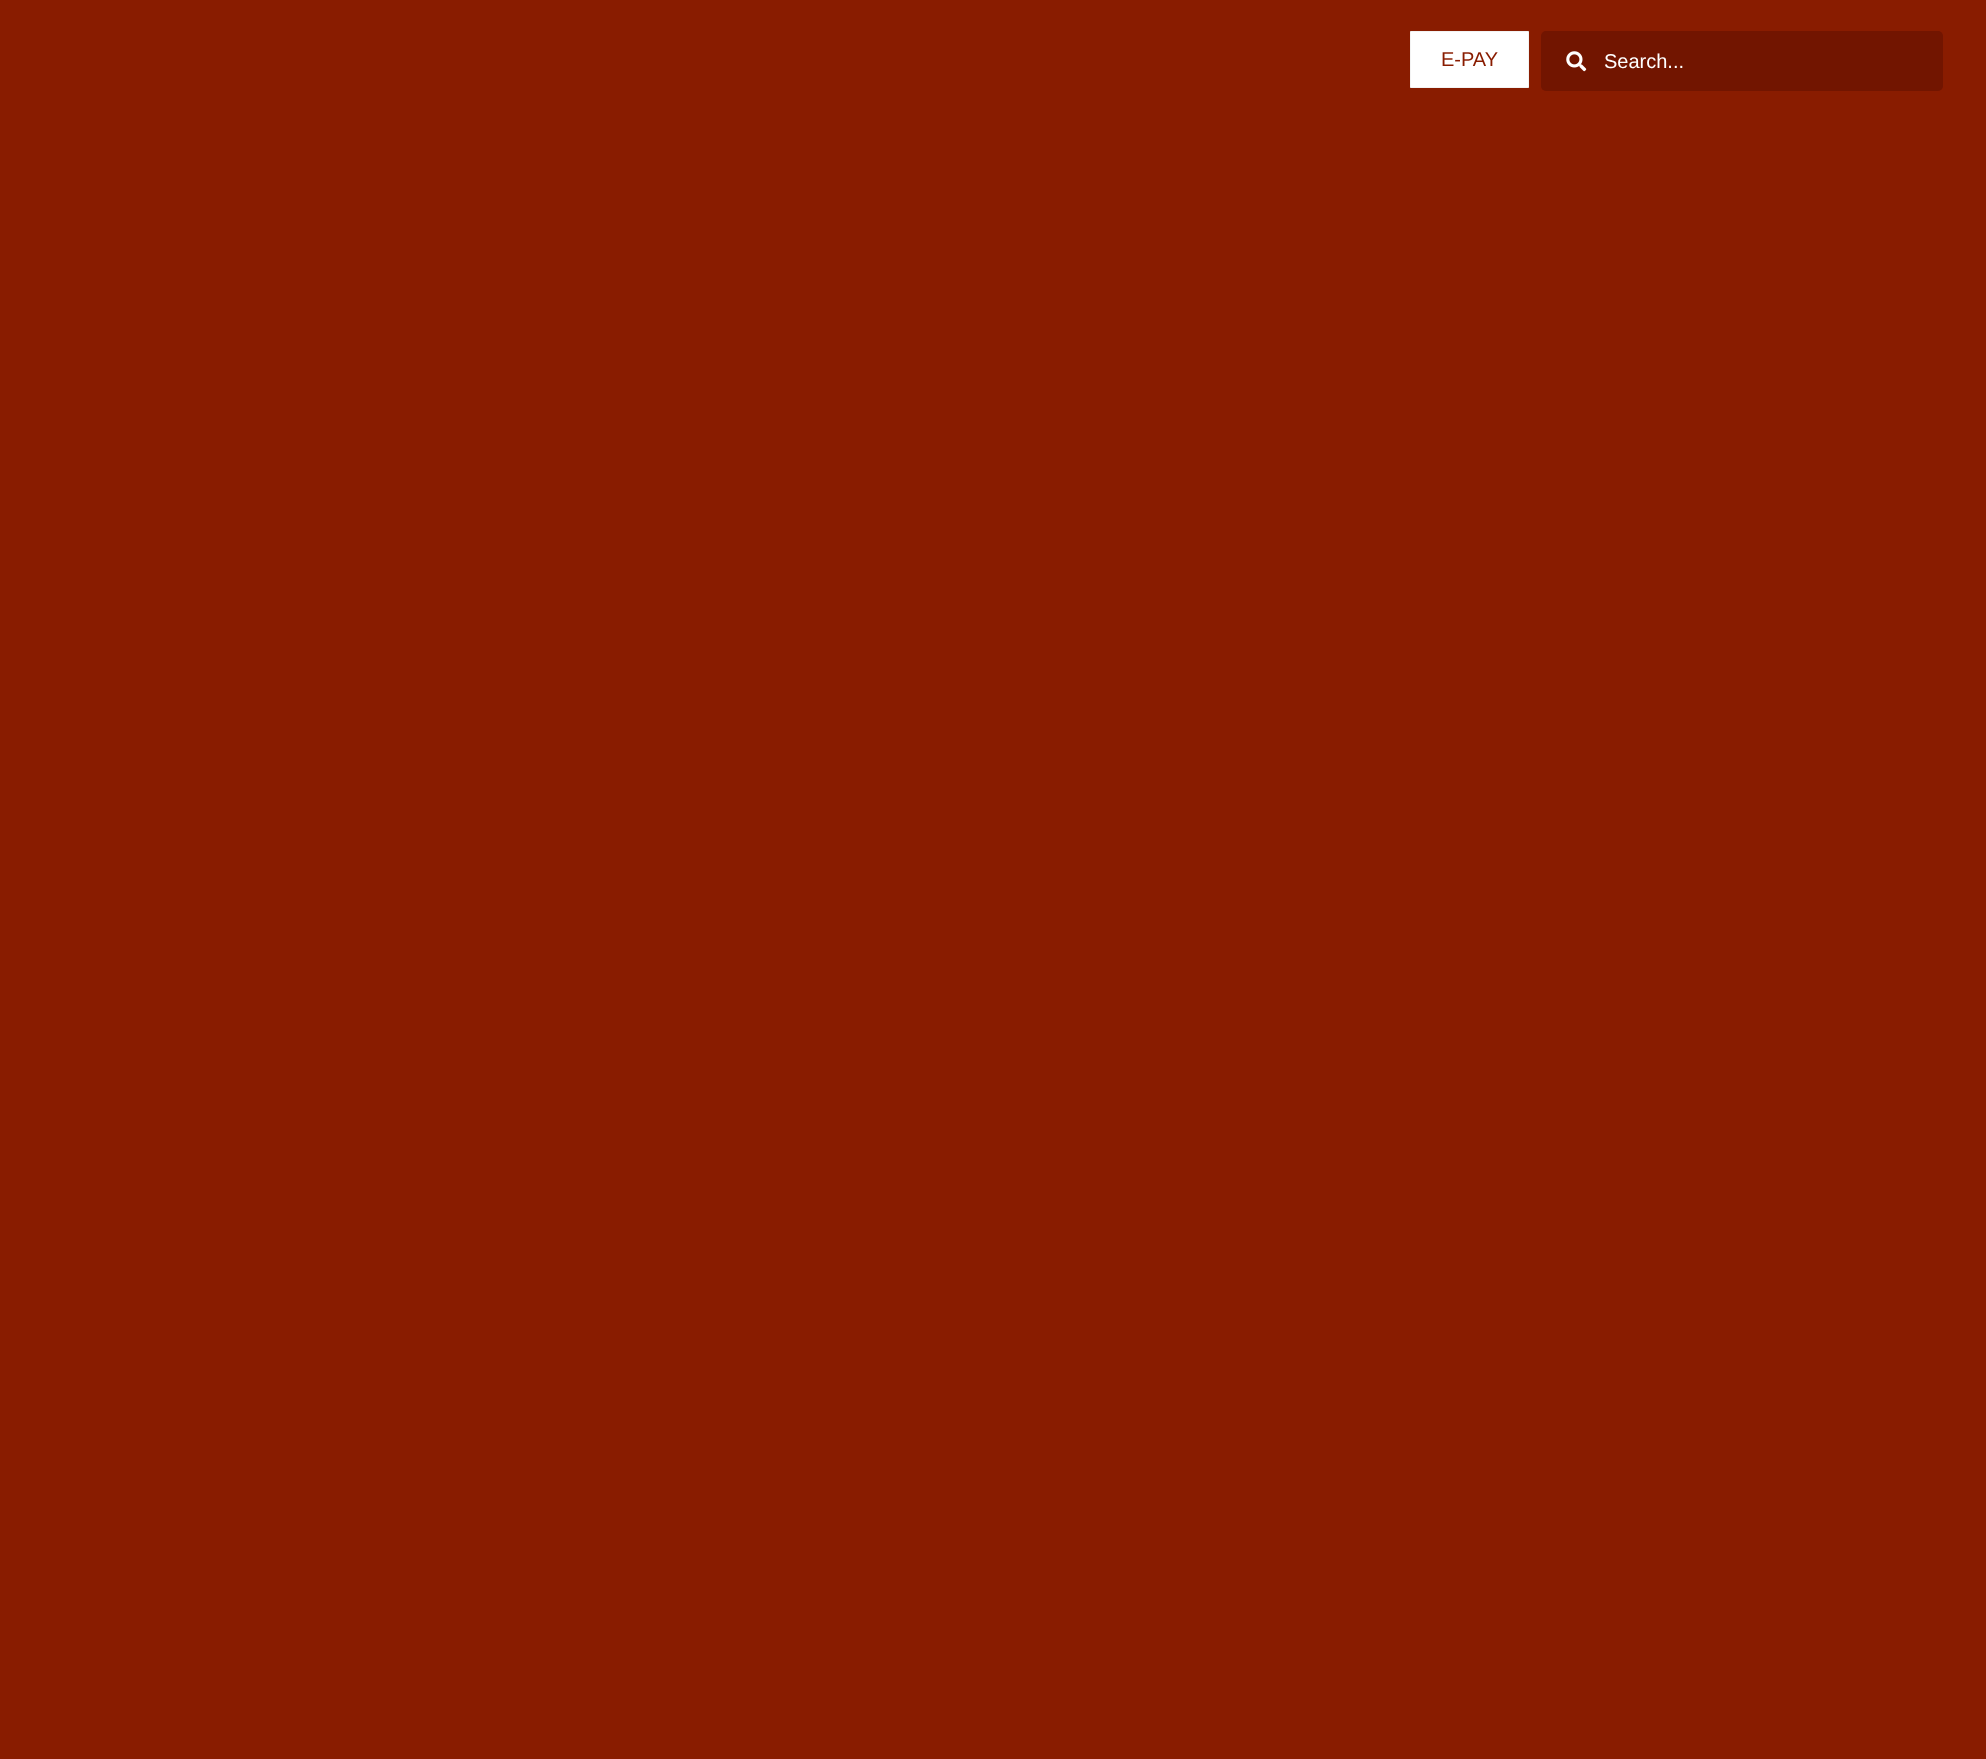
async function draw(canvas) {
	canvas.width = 1986;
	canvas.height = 1759;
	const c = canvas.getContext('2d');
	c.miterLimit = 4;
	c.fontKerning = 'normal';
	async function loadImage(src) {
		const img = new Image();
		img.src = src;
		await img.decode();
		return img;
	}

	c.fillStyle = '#891c00';
	c.fillRect(0, 0, 1986, 1759);
	c.fillStyle = '#fff';
	c.beginPath();
	c.rect(1410.5, 31.5, 118, 56);
	c.fill();
	c.strokeStyle = '#f3f3f3';
	c.stroke();
	c.font = '20px Liberation Sans';
	c.fillStyle = '#891c00';
	c.fillText('E-PAY', 1441, 66);
	c.fillStyle = '#721500';
	c.beginPath();
	c.roundRect(1541, 31, 402, 60, 5);
	c.fill();
	c.drawImage(await loadImage('img1.png'), 1566, 51, 21, 21);
	c.fillStyle = '#fff';
	c.fillText('Search...', 1604, 68);
}

draw(document.querySelector('canvas'));
